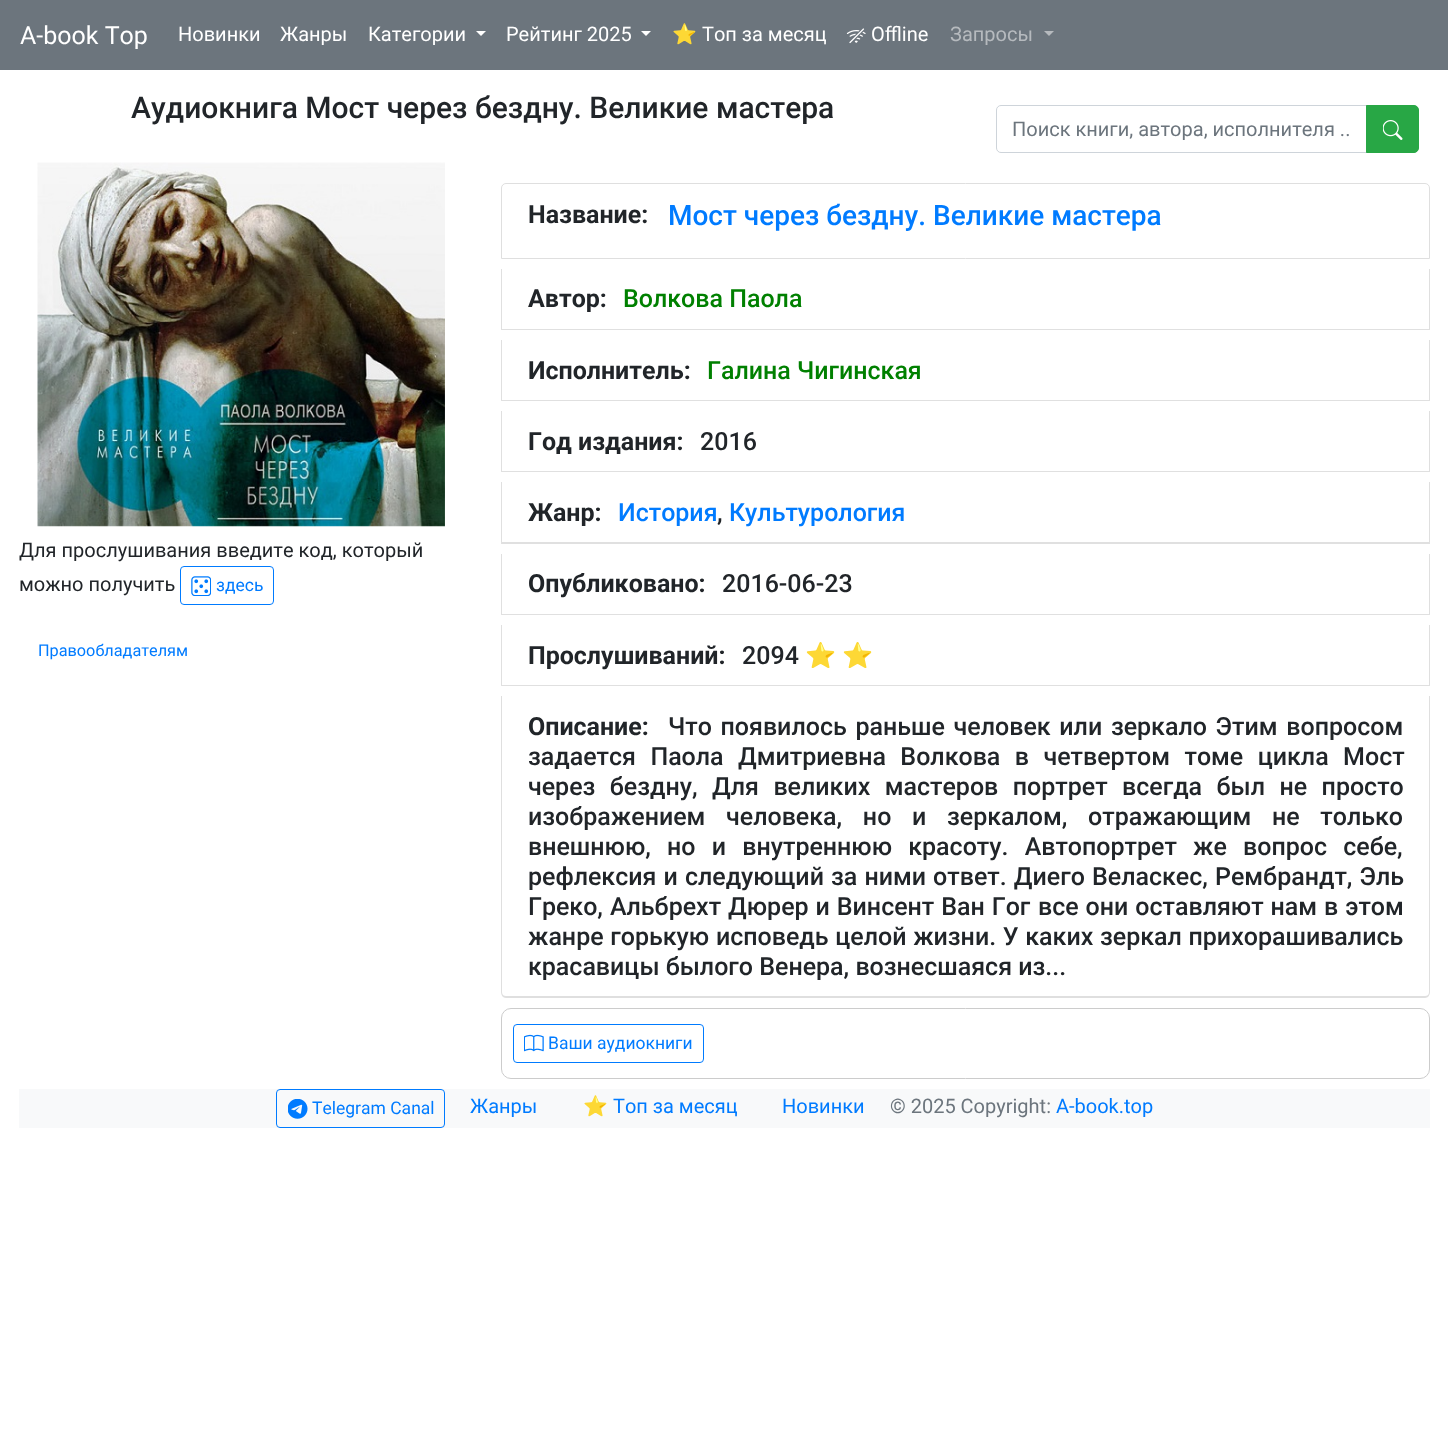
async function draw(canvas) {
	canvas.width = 1448;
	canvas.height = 1430;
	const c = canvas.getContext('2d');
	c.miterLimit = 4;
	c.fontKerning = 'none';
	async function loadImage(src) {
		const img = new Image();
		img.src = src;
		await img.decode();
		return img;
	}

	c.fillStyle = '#fff';
	c.fillRect(0, 0, 1448, 1430);
	c.fillStyle = '#6c757d';
	c.fillRect(0, 0, 1448, 70);
	c.font = '25px Roboto';
	c.fillStyle = '#fff';
	c.fillText('A-book Top', 20, 44);
	c.font = '20px Roboto';
	for (const [text, x, y] of [
		['Новинки', 178, 41],
		['Жанры', 280, 41],
		['Категории', 368, 41],
	]) {
		c.fillText(text, x, y);
	}
	c.beginPath();
	c.moveTo(476, 31);
	c.lineTo(486, 31);
	c.lineTo(481, 36);
	c.closePath();
	c.fill();
	c.fillText('Рейтинг 2025', 506, 41);
	c.beginPath();
	c.moveTo(641, 31);
	c.lineTo(651, 31);
	c.lineTo(646, 36);
	c.closePath();
	c.fill();
	c.font = '20px Noto Color Emoji';
	c.fillText('⭐', 672, 41);
	c.font = '20px Roboto';
	c.fillText('Топ за месяц', 702, 41);
	c.drawImage(await loadImage('img1.png'), 846, 28, 20, 16);
	c.fillText('Offline', 871, 41);
	c.fillStyle = '#b6babe';
	c.fillText('Запросы', 950, 41);
	c.beginPath();
	c.moveTo(1044, 31);
	c.lineTo(1054, 31);
	c.lineTo(1049, 36);
	c.closePath();
	c.fill();
	c.font = '500 30px Roboto';
	c.fillStyle = '#212529';
	c.fillText('Аудиокнига Мост через бездну. Великие мастера', 131, 118);
	c.beginPath();
	c.roundRect(996.5, 105.5, 371, 47, [4.5, 0, 0, 4.5]);
	c.strokeStyle = '#ced4da';
	c.stroke();
	c.font = '20px Roboto';
	c.fillStyle = '#6c757d';
	c.fillText('Поиск книги, автора, исполнителя ..', 1012, 136);
	c.fillStyle = '#28a745';
	c.beginPath();
	c.roundRect(1366.5, 105.5, 52, 47, [0, 4.5, 4.5, 0]);
	c.fill();
	c.strokeStyle = '#28a745';
	c.stroke();
	c.drawImage(await loadImage('img2.png'), 1383, 120, 20, 20);
	c.drawImage(await loadImage('img3.png'), 37, 162, 408, 365);
	c.fillStyle = '#212529';
	c.fillText('Для прослушивания введите код, который', 19, 557);
	c.fillText('можно получить', 19, 591);
	c.beginPath();
	c.roundRect(180.5, 566.5, 93, 38, 3.5);
	c.strokeStyle = '#007bff';
	c.stroke();
	c.drawImage(await loadImage('img4.png'), 191, 576, 20, 20);
	c.font = '17.5px Roboto';
	c.fillStyle = '#007bff';
	c.fillText('здесь', 216, 591);
	c.font = '16.25px Roboto';
	c.fillText('Правообладателям', 38, 656);
	c.beginPath();
	c.roundRect(501.5, 183.5, 928, 75, [4.5, 4.5, 0, 0]);
	c.strokeStyle = '#dfdfdf';
	c.stroke();
	c.font = 'bold 25px Roboto';
	c.fillStyle = '#212529';
	c.fillText('Название:', 528, 223);
	c.font = '500 28px Roboto';
	c.fillStyle = '#007bff';
	c.fillText('Мост через бездну. Великие мастера', 668, 225);
	c.fillStyle = '#dfdfdf';
	c.beginPath();
	c.moveTo(1430, 269);
	c.lineTo(1430, 330);
	c.lineTo(1429, 329);
	c.lineTo(1429, 269);
	c.closePath();
	c.fill();
	c.fillStyle = '#0000001f';
	c.beginPath();
	c.moveTo(1430, 330);
	c.lineTo(501, 330);
	c.lineTo(502, 329);
	c.lineTo(1429, 329);
	c.closePath();
	c.fill();
	c.beginPath();
	c.moveTo(501, 330);
	c.lineTo(501, 269);
	c.lineTo(502, 269);
	c.lineTo(502, 329);
	c.closePath();
	c.fill();
	c.font = 'bold 25px Roboto';
	c.fillStyle = '#212529';
	c.fillText('Автор:', 528, 307);
	c.font = '500 25px Roboto';
	c.fillStyle = '#008000';
	c.fillText('Волкова Паола', 623, 307);
	c.fillStyle = '#dfdfdf';
	c.beginPath();
	c.moveTo(1430, 340);
	c.lineTo(1430, 401);
	c.lineTo(1429, 400);
	c.lineTo(1429, 340);
	c.closePath();
	c.fill();
	c.fillStyle = '#0000001f';
	c.beginPath();
	c.moveTo(1430, 401);
	c.lineTo(501, 401);
	c.lineTo(502, 400);
	c.lineTo(1429, 400);
	c.closePath();
	c.fill();
	c.beginPath();
	c.moveTo(501, 401);
	c.lineTo(501, 340);
	c.lineTo(502, 340);
	c.lineTo(502, 400);
	c.closePath();
	c.fill();
	c.font = 'bold 25px Roboto';
	c.fillStyle = '#212529';
	c.fillText('Исполнитель:', 528, 379);
	c.font = '500 25px Roboto';
	c.fillStyle = '#008000';
	c.fillText('Галина Чигинская', 707, 379);
	c.fillStyle = '#dfdfdf';
	c.beginPath();
	c.moveTo(1430, 411);
	c.lineTo(1430, 472);
	c.lineTo(1429, 471);
	c.lineTo(1429, 411);
	c.closePath();
	c.fill();
	c.fillStyle = '#0000001f';
	c.beginPath();
	c.moveTo(1430, 472);
	c.lineTo(501, 472);
	c.lineTo(502, 471);
	c.lineTo(1429, 471);
	c.closePath();
	c.fill();
	c.beginPath();
	c.moveTo(501, 472);
	c.lineTo(501, 411);
	c.lineTo(502, 411);
	c.lineTo(502, 471);
	c.closePath();
	c.fill();
	c.font = 'bold 25px Roboto';
	c.fillStyle = '#212529';
	c.fillText('Год издания:', 528, 450);
	c.font = '500 25px Roboto';
	c.fillText('2016', 700, 450);
	c.fillStyle = '#dfdfdf';
	c.beginPath();
	c.moveTo(1430, 482);
	c.lineTo(1430, 544);
	c.lineTo(1429, 542);
	c.lineTo(1429, 482);
	c.closePath();
	c.fill();
	c.fillStyle = '#0000001f';
	c.beginPath();
	c.moveTo(1430, 544);
	c.lineTo(501, 544);
	c.lineTo(502, 542);
	c.lineTo(1429, 542);
	c.closePath();
	c.fill();
	c.beginPath();
	c.moveTo(501, 544);
	c.lineTo(501, 482);
	c.lineTo(502, 482);
	c.lineTo(502, 542);
	c.closePath();
	c.fill();
	c.font = 'bold 25px Roboto';
	c.fillStyle = '#212529';
	c.fillText('Жанр:', 528, 521);
	c.font = '500 25px Roboto';
	c.fillStyle = '#007bff';
	c.fillText('История', 618, 521);
	c.fillStyle = '#212529';
	c.fillText(',', 717, 521);
	c.fillStyle = '#007bff';
	c.fillText('Культурология', 729, 521);
	c.fillStyle = '#dfdfdf';
	c.beginPath();
	c.moveTo(1430, 554);
	c.lineTo(1430, 615);
	c.lineTo(1429, 614);
	c.lineTo(1429, 554);
	c.closePath();
	c.fill();
	c.fillStyle = '#0000001f';
	c.beginPath();
	c.moveTo(1430, 615);
	c.lineTo(501, 615);
	c.lineTo(502, 614);
	c.lineTo(1429, 614);
	c.closePath();
	c.fill();
	c.beginPath();
	c.moveTo(501, 615);
	c.lineTo(501, 554);
	c.lineTo(502, 554);
	c.lineTo(502, 614);
	c.closePath();
	c.fill();
	c.font = 'bold 25px Roboto';
	c.fillStyle = '#212529';
	c.fillText('Опубликовано:', 528, 592);
	c.font = '500 25px Roboto';
	c.fillText('2016-06-23', 722, 592);
	c.fillStyle = '#dfdfdf';
	c.beginPath();
	c.moveTo(1430, 625);
	c.lineTo(1430, 686);
	c.lineTo(1429, 685);
	c.lineTo(1429, 625);
	c.closePath();
	c.fill();
	c.fillStyle = '#0000001f';
	c.beginPath();
	c.moveTo(1430, 686);
	c.lineTo(501, 686);
	c.lineTo(502, 685);
	c.lineTo(1429, 685);
	c.closePath();
	c.fill();
	c.beginPath();
	c.moveTo(501, 686);
	c.lineTo(501, 625);
	c.lineTo(502, 625);
	c.lineTo(502, 685);
	c.closePath();
	c.fill();
	c.font = 'bold 25px Roboto';
	c.fillStyle = '#212529';
	c.fillText('Прослушиваний:', 528, 664);
	c.font = '500 25px Roboto';
	c.fillText('2094', 742, 664);
	c.font = '25px Noto Color Emoji';
	c.fillText('⭐', 805, 664);
	c.fillText('⭐', 842, 664);
	c.fillStyle = '#dfdfdf';
	c.beginPath();
	c.moveTo(501, 696);
	c.lineTo(1430, 696);
	c.lineTo(1430, 992);
	c.bezierCurveTo(1430, 995, 1428, 998, 1425, 998);
	c.lineTo(506, 998);
	c.bezierCurveTo(503, 998, 501, 995, 501, 992);
	c.closePath();
	c.moveTo(502, 696);
	c.lineTo(1429, 696);
	c.lineTo(1429, 992);
	c.bezierCurveTo(1429, 995, 1427, 996, 1425, 996);
	c.lineTo(506, 996);
	c.bezierCurveTo(504, 996, 502, 995, 502, 992);
	c.closePath();
	c.fill('evenodd');
	c.font = 'bold 25px Roboto';
	c.fillStyle = '#212529';
	c.fillText('Описание:', 528, 735);
	c.wordSpacing = '2.5px';
	c.font = '500 25px Roboto';
	c.fillText('Что появилось раньше человек или зеркало Этим вопросом', 668, 735);
	c.wordSpacing = '8.25px';
	c.fillText('задается Паола Дмитриевна Волкова в четвертом томе цикла Мост', 528, 765);
	c.fillText('через бездну, Для великих мастеров портрет всегда был не просто', 528, 795);
	c.wordSpacing = '14.5px';
	c.fillText('изображением человека, но и зеркалом, отражающим не только', 528, 825);
	c.wordSpacing = '10px';
	c.fillText('внешнюю, но и внутреннюю красоту. Автопортрет же вопрос себе,', 528, 855);
	c.wordSpacing = '0.9px';
	c.fillText('рефлексия и следующий за ними ответ. Диего Веласкес, Рембрандт, Эль', 528, 885);
	c.wordSpacing = '0.75px';
	c.fillText('Греко, Альбрехт Дюрер и Винсент Ван Гог', 528, 915);
	c.fillText('все они оставляют нам в этом', 1038, 915);
	c.wordSpacing = '0.5px';
	c.fillText('жанре горькую исповедь целой жизни. У каких зеркал прихорашивались', 528, 945);
	c.wordSpacing = '0px';
	c.fillText('красавицы былого Венера, вознесшаяся из...', 528, 975);
	c.beginPath();
	c.roundRect(501.5, 1008.5, 928, 70, 9.5);
	c.strokeStyle = '#ccc';
	c.stroke();
	c.beginPath();
	c.roundRect(513.5, 1024.5, 190, 38, 3.5);
	c.strokeStyle = '#007bff';
	c.stroke();
	c.drawImage(await loadImage('img5.png'), 524, 1034, 20, 18);
	c.font = '17.5px Roboto';
	c.fillStyle = '#007bff';
	c.fillText('Ваши аудиокниги', 548, 1049);
	c.fillStyle = '#f8f9fa';
	c.fillRect(19, 1089, 1411, 39);
	c.beginPath();
	c.roundRect(276.5, 1089.5, 168, 38, 3.5);
	c.stroke();
	c.drawImage(await loadImage('img6.png'), 288, 1099, 20, 20);
	c.fillStyle = '#007bff';
	c.fillText('Telegram Canal', 312, 1114);
	c.font = '20px Roboto';
	c.fillText('Жанры', 470, 1113);
	c.font = '20px Noto Color Emoji';
	c.fillText('⭐', 583, 1113);
	c.font = '20px Roboto';
	c.fillText('Топ за месяц', 613, 1113);
	c.fillText('Новинки', 782, 1113);
	c.fillStyle = '#6c757d';
	c.fillText('© 2025 Copyright:', 890, 1113);
	c.fillStyle = '#007bff';
	c.fillText('A-book.top', 1056, 1113);
}

draw(document.querySelector('canvas'));
